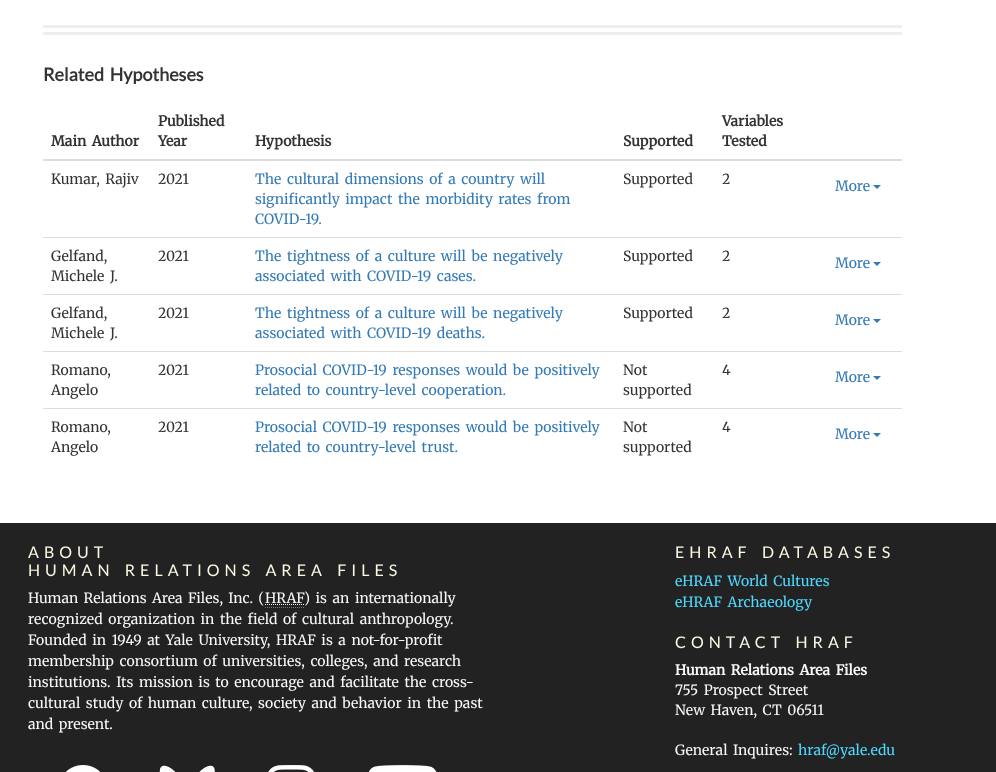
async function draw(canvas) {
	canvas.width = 996;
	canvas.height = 772;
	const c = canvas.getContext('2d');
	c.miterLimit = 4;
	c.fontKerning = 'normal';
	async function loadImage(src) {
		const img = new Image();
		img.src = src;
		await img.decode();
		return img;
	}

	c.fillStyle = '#222';
	c.fillRect(0, 0, 996, 772);
	for (const [x, y, w, h, color] of [
		[0, 0, 996, 523, '#fff'],
		[43, 25, 859, 3, '#eee'],
		[43, 32, 859, 3, '#eee'],
	]) {
		c.fillStyle = color;
		c.fillRect(x, y, w, h);
	}
	c.wordSpacing = '2.25px';
	c.font = 'bold 18px Lato';
	c.fillStyle = '#333';
	c.fillText('Related Hypotheses', 43, 81);
	c.font = 'bold 14px Merriweather';
	c.fillText('Main Author', 51, 146);
	c.wordSpacing = '0px';
	for (const [text, x, y] of [
		['Published', 158, 126],
		['Year', 158, 146],
		['Hypothesis', 255, 146],
		['Supported', 623, 146],
		['Variables', 722, 126],
		['Tested', 722, 146],
	]) {
		c.fillText(text, x, y);
	}
	c.fillStyle = '#ddd';
	c.fillRect(43, 159, 859, 2);
	c.wordSpacing = '2.25px';
	c.font = '300 14px Merriweather';
	c.fillStyle = '#333';
	c.fillText('Kumar, Rajiv', 51, 184);
	c.wordSpacing = '0px';
	c.fillText('2021', 158, 184);
	c.wordSpacing = '2.25px';
	c.fillStyle = '#337ab7';
	c.fillText('The cultural dimensions of a country will', 255, 184);
	c.fillText('significantly impact the morbidity rates from', 255, 204);
	c.wordSpacing = '0px';
	c.fillText('COVID-19.', 255, 224);
	c.fillStyle = '#333';
	c.fillText('Supported', 623, 184);
	c.fillText('2', 722, 184);
	c.fillStyle = '#337ab7';
	c.fillText('More', 835, 191);
	c.beginPath();
	c.moveTo(873, 185);
	c.lineTo(881, 185);
	c.lineTo(877, 189);
	c.closePath();
	c.fill();
	c.fillStyle = '#333';
	c.fillText('Gelfand,', 51, 261);
	c.wordSpacing = '2.25px';
	c.fillText('Michele J.', 51, 281);
	c.wordSpacing = '0px';
	c.fillText('2021', 158, 261);
	c.wordSpacing = '2.25px';
	c.fillStyle = '#337ab7';
	c.fillText('The tightness of a culture will be negatively', 255, 261);
	c.fillText('associated with COVID-19 cases.', 255, 281);
	c.wordSpacing = '0px';
	c.fillStyle = '#333';
	c.fillText('Supported', 623, 261);
	c.fillText('2', 722, 261);
	c.fillStyle = '#ddd';
	c.fillRect(43, 237, 859, 1);
	c.fillStyle = '#337ab7';
	c.fillText('More', 835, 268);
	c.beginPath();
	c.moveTo(873, 262);
	c.lineTo(881, 262);
	c.lineTo(877, 266);
	c.closePath();
	c.fill();
	c.fillStyle = '#333';
	c.fillText('Gelfand,', 51, 318);
	c.wordSpacing = '2.25px';
	c.fillText('Michele J.', 51, 338);
	c.wordSpacing = '0px';
	c.fillText('2021', 158, 318);
	c.wordSpacing = '2.25px';
	c.fillStyle = '#337ab7';
	c.fillText('The tightness of a culture will be negatively', 255, 318);
	c.fillText('associated with COVID-19 deaths.', 255, 338);
	c.wordSpacing = '0px';
	c.fillStyle = '#333';
	c.fillText('Supported', 623, 318);
	c.fillText('2', 722, 318);
	c.fillStyle = '#ddd';
	c.fillRect(43, 294, 859, 1);
	c.fillStyle = '#337ab7';
	c.fillText('More', 835, 325);
	c.beginPath();
	c.moveTo(873, 319);
	c.lineTo(881, 319);
	c.lineTo(877, 323);
	c.closePath();
	c.fill();
	c.fillStyle = '#333';
	for (const [text, x, y] of [
		['Romano,', 51, 375],
		['Angelo', 51, 395],
		['2021', 158, 375],
	]) {
		c.fillText(text, x, y);
	}
	c.wordSpacing = '2.25px';
	c.fillStyle = '#337ab7';
	c.fillText('Prosocial COVID-19 responses would be positively', 255, 375);
	c.fillText('related to country-level cooperation.', 255, 395);
	c.wordSpacing = '0px';
	c.fillStyle = '#333';
	for (const [text, x, y] of [
		['Not', 623, 375],
		['supported', 623, 395],
		['4', 722, 375],
	]) {
		c.fillText(text, x, y);
	}
	c.fillStyle = '#ddd';
	c.fillRect(43, 351, 859, 1);
	c.fillStyle = '#337ab7';
	c.fillText('More', 835, 382);
	c.beginPath();
	c.moveTo(873, 376);
	c.lineTo(881, 376);
	c.lineTo(877, 380);
	c.closePath();
	c.fill();
	c.fillStyle = '#333';
	for (const [text, x, y] of [
		['Romano,', 51, 432],
		['Angelo', 51, 452],
		['2021', 158, 432],
	]) {
		c.fillText(text, x, y);
	}
	c.wordSpacing = '2.25px';
	c.fillStyle = '#337ab7';
	c.fillText('Prosocial COVID-19 responses would be positively', 255, 432);
	c.fillText('related to country-level trust.', 255, 452);
	c.wordSpacing = '0px';
	c.fillStyle = '#333';
	for (const [text, x, y] of [
		['Not', 623, 432],
		['supported', 623, 452],
		['4', 722, 432],
	]) {
		c.fillText(text, x, y);
	}
	c.fillStyle = '#ddd';
	c.fillRect(43, 408, 859, 1);
	c.fillStyle = '#337ab7';
	c.fillText('More', 835, 439);
	c.beginPath();
	c.moveTo(873, 433);
	c.lineTo(881, 433);
	c.lineTo(877, 437);
	c.closePath();
	c.fill();
	c.letterSpacing = '5px';
	c.font = '16px Lato';
	c.fillStyle = '#fcf8e3';
	c.fillText('ABOUT', 28, 558);
	c.wordSpacing = '2.25px';
	c.fillText('HUMAN RELATIONS AREA FILES', 28, 576);
	c.letterSpacing = '0px';
	c.wordSpacing = '2px';
	c.font = '300 14px Merriweather';
	c.fillStyle = '#f8f8f8';
	c.fillText('Human Relations Area Files, Inc. (', 28, 603);
	c.wordSpacing = '0px';
	c.fillText('HRAF', 265, 603);
	c.beginPath();
	c.moveTo(265, 607.5);
	c.lineTo(304, 607.5);
	c.strokeStyle = '#777';
	c.setLineDash([1, 1]);
	c.stroke();
	c.beginPath();
	c.moveTo(265, 604.5);
	c.lineTo(304, 604.5);
	c.strokeStyle = '#f8f8f8';
	c.stroke();
	c.wordSpacing = '2.25px';
	for (const [text, x, y] of [
		[') is an internationally', 304, 603],
		['recognized organization in the field of cultural anthropology.', 28, 624],
		['Founded in 1949 at Yale University, HRAF is a not-for-profit', 28, 645],
		['membership consortium of universities, colleges, and research', 28, 666],
		['institutions. Its mission is to encourage and facilitate the cross-', 28, 687],
		['cultural study of human culture, society and behavior in the past', 28, 708],
		['and present.', 28, 729],
	]) {
		c.fillText(text, x, y);
	}
	c.letterSpacing = '5px';
	c.font = '16px Lato';
	c.fillStyle = '#fcf8e3';
	c.fillText('EHRAF DATABASES', 675, 558);
	c.letterSpacing = '0px';
	c.font = '300 14px Merriweather';
	c.fillStyle = '#4fd8ff';
	c.fillText('eHRAF World Cultures', 675, 586);
	c.fillText('eHRAF Archaeology', 675, 607);
	c.letterSpacing = '5px';
	c.font = '16px Lato';
	c.fillStyle = '#fcf8e3';
	c.fillText('CONTACT HRAF', 675, 648);
	c.letterSpacing = '0px';
	c.font = 'bold 14px Merriweather';
	c.fillStyle = '#f8f8f8';
	c.fillText('Human Relations Area Files', 675, 675);
	c.font = '300 14px Merriweather';
	for (const [text, x, y] of [
		['755 Prospect Street', 675, 695],
		['New Haven, CT 06511', 675, 715],
		['General Inquires:', 675, 755],
	]) {
		c.fillText(text, x, y);
	}
	c.wordSpacing = '0px';
	c.fillStyle = '#4fd8ff';
	c.fillText('hraf@yale.edu', 798, 755);
	c.drawImage(await loadImage('img1.png'), 66, 765, 34, 7);
	c.drawImage(await loadImage('img2.png'), 159, 765, 56, 7);
	c.drawImage(await loadImage('img3.png'), 268, 765, 46, 7);
	c.drawImage(await loadImage('img4.png'), 368, 765, 69, 7);
}

draw(document.querySelector('canvas'));
